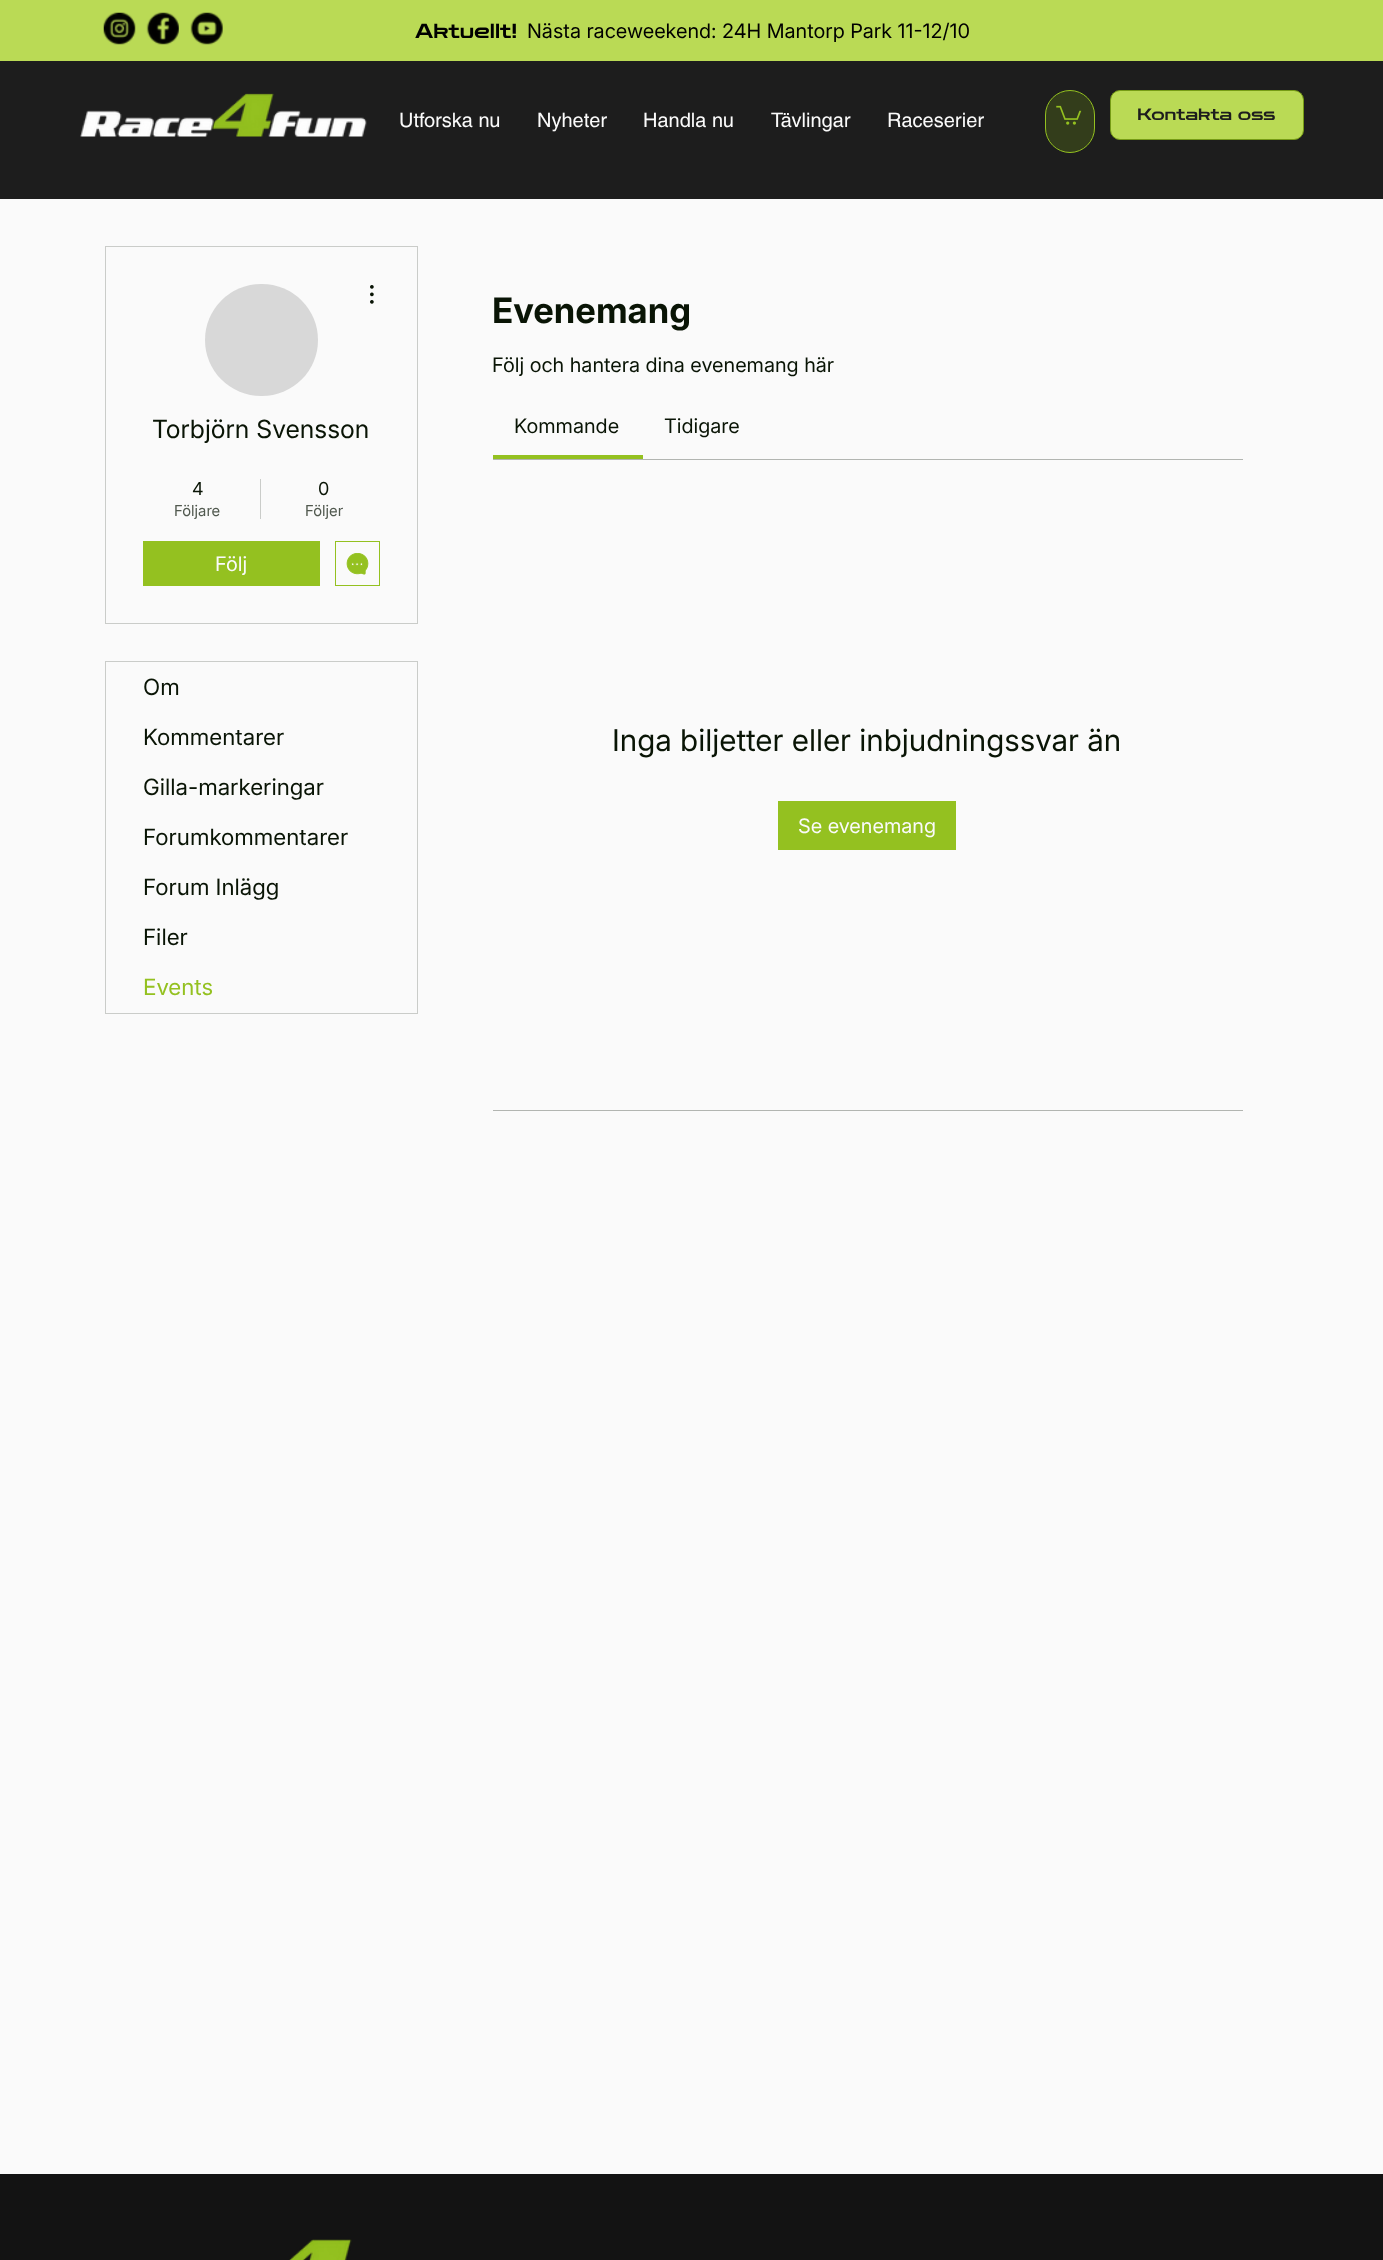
async function draw(canvas) {
	canvas.width = 1383;
	canvas.height = 2260;
	const c = canvas.getContext('2d');
	c.miterLimit = 4;
	c.fontKerning = 'normal';
	async function loadImage(src) {
		const img = new Image();
		img.src = src;
		await img.decode();
		return img;
	}

	c.fillStyle = '#fafafa';
	c.fillRect(0, 0, 1383, 2260);
	c.fillStyle = '#bada55';
	c.fillRect(0, 0, 1383, 61);
	c.drawImage(await loadImage('img1.png'), 103, 12, 33, 33);
	c.drawImage(await loadImage('img2.png'), 146, 12, 33, 33);
	c.drawImage(await loadImage('img3.png'), 190, 12, 33, 33);
	c.font = '20px Zen Dots';
	c.fillStyle = '#000';
	c.fillText('Aktuellt!', 415, 38);
	c.font = '20px Inter';
	c.fillText('Nästa raceweekend: 24H Mantorp Park 11-12/10', 527, 38);
	c.fillStyle = '#1d1d1d';
	c.fillRect(0, 61, 1383, 138);
	c.drawImage(await loadImage('img4.png'), 80, 93, 287, 44);
	c.font = '20px helvetica';
	c.fillStyle = '#fafafa';
	for (const [text, x, y] of [
		['Utforska nu', 399, 127],
		['Nyheter', 537, 127],
		['Handla nu', 643, 127],
		['Tävlingar', 771, 127],
		['Raceserier', 887, 127],
	]) {
		c.fillText(text, x, y);
	}
	c.fillStyle = '#333d1b';
	c.beginPath();
	c.roundRect(1045.5, 90.5, 49, 62, 24.5);
	c.fill();
	c.strokeStyle = '#94c120';
	c.stroke();
	c.drawImage(await loadImage('img5.png'), 1056, 105, 26, 20);
	c.fillStyle = '#bada55';
	c.beginPath();
	c.roundRect(1110.5, 90.5, 193, 49, 9.5);
	c.fill();
	c.strokeStyle = '#769c15';
	c.stroke();
	c.font = '16.25px Zen Dots';
	c.fillStyle = '#1d1d1d';
	c.fillText('Kontakta oss', 1137, 120);
	c.strokeStyle = '#caccc9';
	c.strokeRect(105.5, 246.5, 312, 377);
	c.fillStyle = '#d8d8d8';
	c.beginPath();
	c.roundRect(205, 284, 113, 112, 56);
	c.fill();
	c.drawImage(await loadImage('img6.png'), 370, 285, 4, 19);
	c.font = '25px Inter';
	c.fillStyle = '#091405';
	c.fillText('Torbjörn Svensson', 152, 438);
	c.font = '18px Inter';
	c.fillText('4', 192, 495);
	c.font = '15px Inter';
	c.fillStyle = '#51594f';
	c.fillText('Följare', 174, 516);
	c.fillStyle = '#caccc9';
	c.fillRect(260, 479, 1, 40);
	c.font = '18px Inter';
	c.fillStyle = '#091405';
	c.fillText('0', 318, 495);
	c.font = '15px Inter';
	c.fillStyle = '#51594f';
	c.fillText('Följer', 305, 516);
	c.fillStyle = '#94c120';
	c.fillRect(143, 541, 177, 45);
	c.font = '20px Inter';
	c.fillStyle = '#fafafa';
	c.fillText('Följ', 215, 571);
	c.strokeStyle = '#94c120';
	c.strokeRect(335.5, 541.5, 44, 44);
	c.drawImage(await loadImage('img7.png'), 346, 553, 23, 22);
	c.strokeStyle = '#caccc9';
	c.strokeRect(105.5, 661.5, 312, 352);
	c.font = '22.5px Inter';
	c.fillStyle = '#091405';
	for (const [text, x, y] of [
		['Om', 143, 695],
		['Kommentarer', 143, 745],
		['Gilla-markeringar', 143, 795],
		['Forumkommentarer', 143, 845],
		['Forum Inlägg', 143, 895],
		['Filer', 143, 945],
	]) {
		c.fillText(text, x, y);
	}
	c.fillStyle = '#94c120';
	c.fillText('Events', 143, 995);
	c.font = 'bold 35px Inter';
	c.fillStyle = '#091405';
	c.fillText('Evenemang', 492, 323);
	c.font = '20px Inter';
	c.fillText('Följ och hantera dina evenemang här', 492, 372);
	c.fillStyle = '#94c120';
	c.fillRect(493, 455, 150, 4);
	c.fillStyle = '#091405';
	c.fillText('Kommande', 514, 433);
	c.fillText('Tidigare', 664, 433);
	c.fillStyle = '#b2b5b1';
	c.fillRect(493, 459, 750, 1);
	c.font = '30px Inter';
	c.fillStyle = '#091405';
	c.fillText('Inga biljetter eller inbjudningssvar än', 612, 751);
	c.fillStyle = '#94c120';
	c.fillRect(778, 801, 178, 49);
	c.font = '20px Inter';
	c.fillStyle = '#fafafa';
	c.fillText('Se evenemang', 798, 833);
	c.fillStyle = '#b2b5b1';
	c.fillRect(493, 1110, 750, 1);
	c.fillStyle = '#131313';
	c.fillRect(0, 2174, 1383, 86);
	c.drawImage(await loadImage('img8.png'), 289, 2239, 63, 21);
}

draw(document.querySelector('canvas'));
